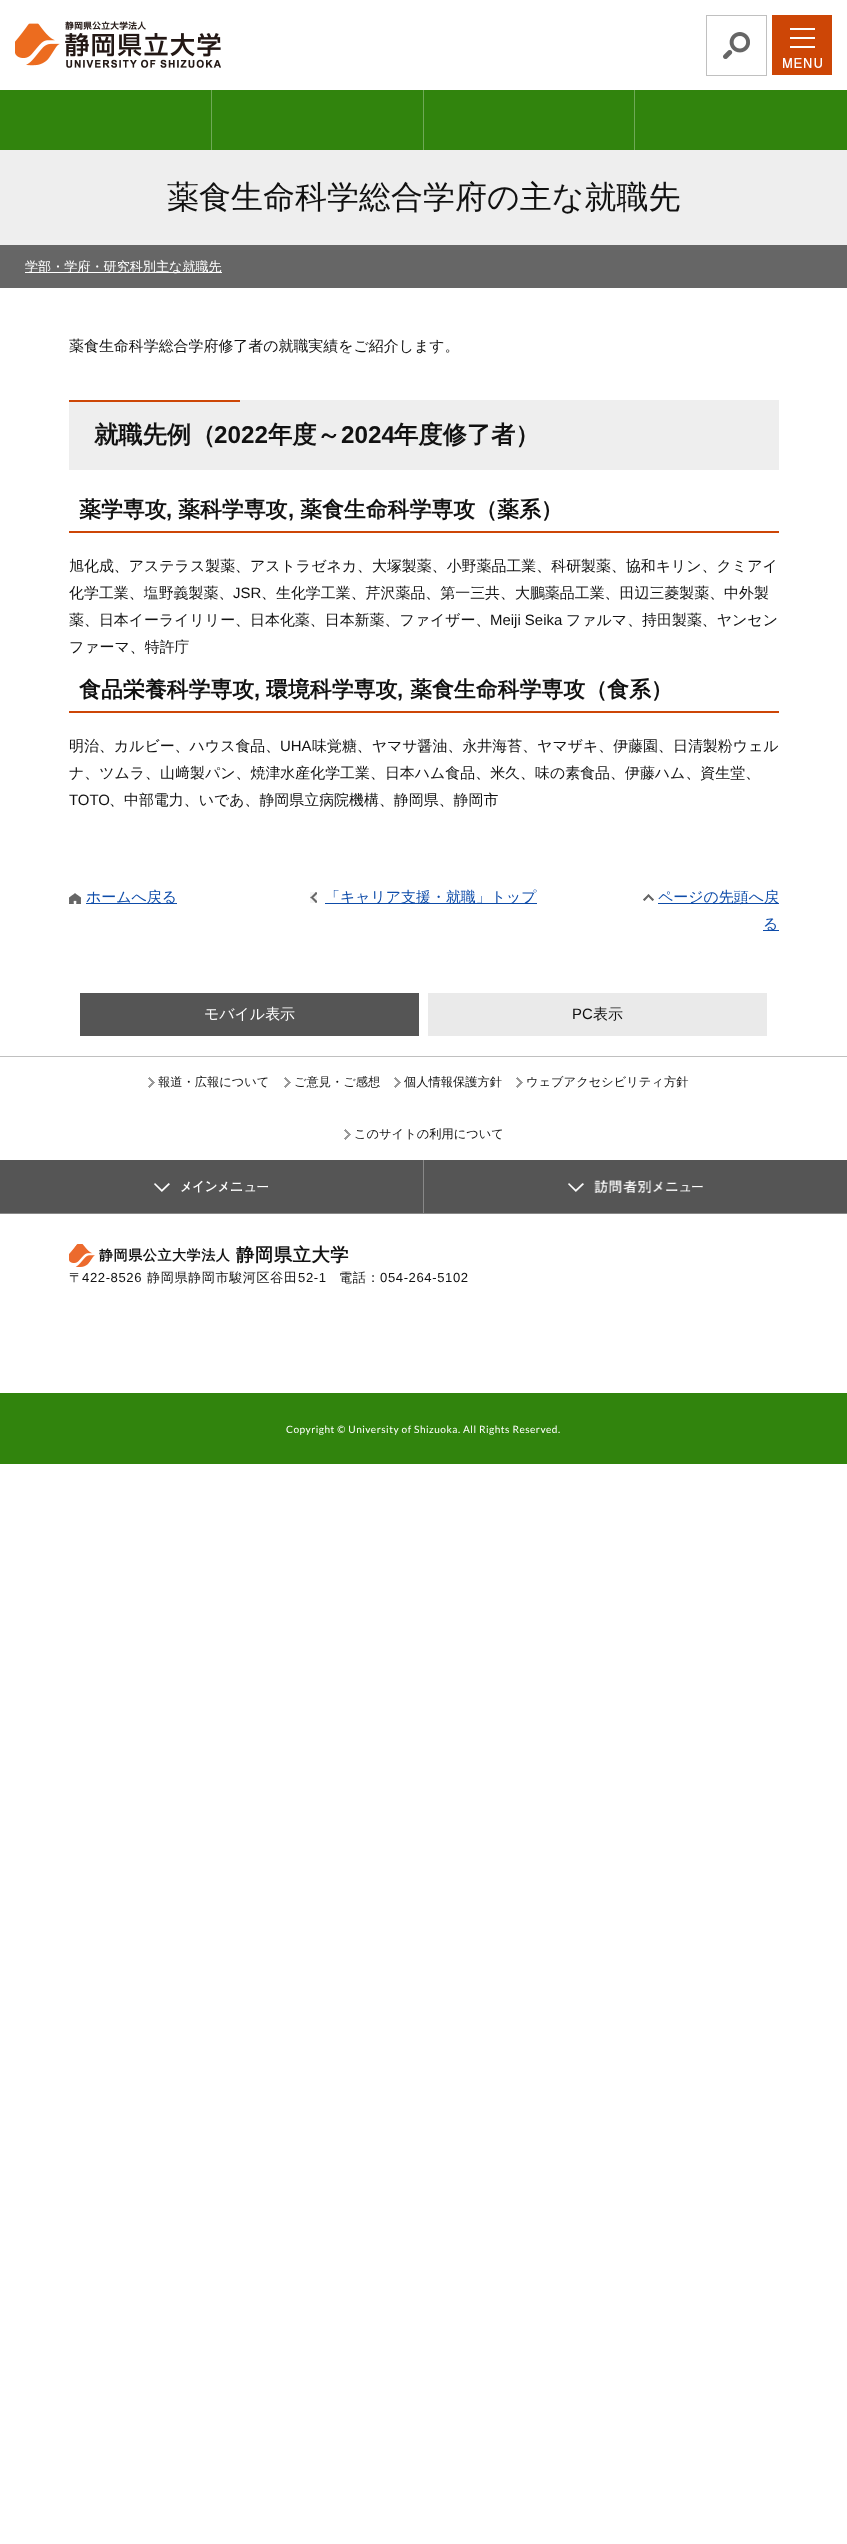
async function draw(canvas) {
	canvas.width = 847;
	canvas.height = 2544;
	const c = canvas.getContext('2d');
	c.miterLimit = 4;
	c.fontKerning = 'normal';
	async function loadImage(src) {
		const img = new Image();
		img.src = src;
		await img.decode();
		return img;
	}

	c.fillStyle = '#fff';
	c.fillRect(0, 0, 847, 2544);
	c.drawImage(await loadImage('img1.png'), 15, 21, 206, 47);
	c.strokeStyle = '#c0c0c0';
	c.strokeRect(706.5, 15.5, 60, 60);
	c.drawImage(await loadImage('img2.png'), 723, 32, 27, 27);
	c.drawImage(await loadImage('img3.png'), 772, 15, 60, 60);
	for (const [x, y, w, h, color] of [
		[0, 90, 847, 60, '#31840d'],
		[211, 90, 1, 60, '#6fa956'],
		[423, 90, 1, 60, '#6fa956'],
		[634, 90, 1, 60, '#6fa956'],
		[0, 150, 847, 95, '#eee'],
	]) {
		c.fillStyle = color;
		c.fillRect(x, y, w, h);
	}
	c.font = '500 32px WenQuanYi Zen Hei';
	c.fillStyle = '#111';
	c.fillText('薬食生命科学総合学府の主な就職先', 167, 208);
	c.fillStyle = '#666';
	c.fillRect(0, 245, 847, 43);
	c.fillStyle = '#fff';
	c.fillRect(25, 272, 197, 1);
	c.font = '500 13.1px WenQuanYi Zen Hei';
	c.fillText('学部・学府・研究科別主な就職先', 25, 271);
	c.font = '500 14.95px WenQuanYi Zen Hei';
	c.fillStyle = '#111';
	c.fillText('薬食生命科学総合学府修了者の就職実績をご紹介します。', 69, 351);
	c.fillStyle = '#eee';
	c.fillRect(69, 400, 710, 70);
	c.fillStyle = '#cd4606';
	c.fillRect(69, 400, 171, 2);
	c.font = 'bold 24.25px WenQuanYi Zen Hei';
	c.fillStyle = '#111';
	c.fillText('就職先例（', 94, 443);
	c.font = 'bold 24.25px Liberation Sans';
	c.fillText('2022', 214, 443);
	c.font = 'bold 24.25px WenQuanYi Zen Hei';
	c.fillText('年度～', 268, 443);
	c.font = 'bold 24.25px Liberation Sans';
	c.fillText('2024', 341, 443);
	c.font = 'bold 24.25px WenQuanYi Zen Hei';
	c.fillText('年度修了者）', 394, 443);
	c.fillStyle = '#cd4606';
	c.fillRect(69, 531, 710, 2);
	c.font = 'bold 21.9px WenQuanYi Zen Hei';
	c.fillStyle = '#111';
	c.fillText('薬学専攻', 79, 517);
	c.font = 'bold 21.9px Liberation Sans';
	c.fillText(',', 166, 517);
	c.font = 'bold 21.9px WenQuanYi Zen Hei';
	c.fillText('薬科学専攻', 178, 517);
	c.font = 'bold 21.9px Liberation Sans';
	c.fillText(',', 288, 517);
	c.font = 'bold 21.9px WenQuanYi Zen Hei';
	c.fillText('薬食生命科学専攻（薬系）', 300, 517);
	c.font = '500 14.95px WenQuanYi Zen Hei';
	c.fillText('旭化成、アステラス製薬、アストラゼネカ、大塚製薬、小野薬品工業、科研製薬、協和キリン、クミアイ', 69, 571);
	c.fillText('化学工業、塩野義製薬、', 69, 598);
	c.font = '14.95px Liberation Sans';
	c.fillText('JSR', 233, 598);
	c.font = '500 14.95px WenQuanYi Zen Hei';
	c.fillText('、生化学工業、芹沢薬品、第一三共、大鵬薬品工業、田辺三菱製薬、中外製', 261, 598);
	c.fillText('薬、日本イーライリリー、日本化薬、日本新薬、ファイザー、', 69, 625);
	c.font = '14.95px Liberation Sans';
	c.fillText('Meiji Seika', 490, 625);
	c.font = '500 14.95px WenQuanYi Zen Hei';
	c.fillText('ファルマ、持田製薬、ヤンセン', 566, 625);
	c.fillText('ファーマ、特許庁', 69, 652);
	c.fillStyle = '#cd4606';
	c.fillRect(69, 711, 710, 2);
	c.font = 'bold 21.9px WenQuanYi Zen Hei';
	c.fillStyle = '#111';
	c.fillText('食品栄養科学専攻', 79, 697);
	c.font = 'bold 21.9px Liberation Sans';
	c.fillText(',', 254, 697);
	c.font = 'bold 21.9px WenQuanYi Zen Hei';
	c.fillText('環境科学専攻', 266, 697);
	c.font = 'bold 21.9px Liberation Sans';
	c.fillText(',', 397, 697);
	c.font = 'bold 21.9px WenQuanYi Zen Hei';
	c.fillText('薬食生命科学専攻（食系）', 410, 697);
	c.font = '500 14.95px WenQuanYi Zen Hei';
	c.fillText('明治、カルビー、ハウス食品、', 69, 751);
	c.font = '14.95px Liberation Sans';
	c.fillText('UHA', 280, 751);
	c.font = '500 14.95px WenQuanYi Zen Hei';
	c.fillText('味覚糖、ヤマサ醤油、永井海苔、ヤマザキ、伊藤園、日清製粉ウェル', 312, 751);
	c.fillText('ナ、ツムラ、山', 69, 778);
	c.font = '14.95px IPAPGothic';
	c.fillText('﨑', 175, 778);
	c.font = '500 14.95px WenQuanYi Zen Hei';
	c.fillText('製パン、焼津水産化学工業、日本ハム食品、米久、味の素食品、伊藤ハム、資生堂、', 190, 778);
	c.font = '14.95px Liberation Sans';
	c.fillText('TOTO', 69, 805);
	c.font = '500 14.95px WenQuanYi Zen Hei';
	c.fillText('、中部電力、いであ、静岡県立病院機構、静岡県、静岡市', 109, 805);
	c.drawImage(await loadImage('img4.png'), 69, 893, 12, 11);
	c.fillStyle = '#0e4ca9';
	c.fillRect(86, 903, 91, 1);
	c.fillText('ホームへ戻る', 86, 902);
	c.drawImage(await loadImage('img5.png'), 310, 892, 7, 11);
	c.fillRect(325, 903, 212, 1);
	c.fillText('「キャリア支援・就職」トップ', 325, 902);
	c.drawImage(await loadImage('img6.png'), 643, 894, 11, 7);
	c.fillRect(658, 903, 121, 1);
	c.fillText('ページの先頭へ戻', 658, 902);
	c.fillRect(763, 930, 16, 1);
	c.fillText('る', 763, 929);
	c.fillStyle = '#c0c0c0';
	c.fillRect(0, 1056, 847, 1);
	c.fillStyle = '#555';
	c.fillRect(80, 993, 339, 43);
	c.fillStyle = '#fff';
	c.fillText('モバイル表示', 204, 1019);
	c.fillStyle = '#eaeaea';
	c.fillRect(428, 993, 339, 43);
	c.font = '14.95px Liberation Sans';
	c.fillStyle = '#111';
	c.fillText('PC', 572, 1019);
	c.font = '500 14.95px WenQuanYi Zen Hei';
	c.fillText('表示', 593, 1019);
	c.drawImage(await loadImage('img7.png'), 148, 1077, 7, 11);
	c.font = '500 12.25px WenQuanYi Zen Hei';
	c.fillText('報道・広報について', 158, 1086);
	c.drawImage(await loadImage('img7.png'), 284, 1077, 7, 11);
	c.fillText('ご意見・ご感想', 294, 1086);
	c.drawImage(await loadImage('img7.png'), 394, 1077, 7, 11);
	c.fillText('個人情報保護方針', 404, 1086);
	c.drawImage(await loadImage('img7.png'), 516, 1077, 7, 11);
	c.fillText('ウェブアクセシビリティ方針', 526, 1086);
	c.drawImage(await loadImage('img7.png'), 344, 1129, 7, 11);
	c.fillText('このサイトの利用について', 354, 1138);
	for (const [x, y, w, h, color] of [
		[0, 1213, 847, 1, '#888'],
		[0, 1160, 423, 53, '#555'],
		[423, 1160, 1, 53, '#888'],
	]) {
		c.fillStyle = color;
		c.fillRect(x, y, w, h);
	}
	c.drawImage(await loadImage('img8.png'), 154, 1180, 114, 13);
	c.fillStyle = '#555';
	c.fillRect(424, 1160, 423, 53);
	c.drawImage(await loadImage('img9.png'), 568, 1180, 135, 13);
	c.drawImage(await loadImage('img10.png'), 69, 1244, 26, 23);
	c.letterSpacing = '0.6px';
	c.font = 'bold 14px WenQuanYi Zen Hei';
	c.fillStyle = '#111';
	c.fillText('静岡県公立大学法人', 99, 1260);
	c.font = 'bold 18.25px WenQuanYi Zen Hei';
	c.fillText('静岡県立大学', 236, 1261);
	c.font = '500 13.1px WenQuanYi Zen Hei';
	c.fillText('〒', 69, 1282);
	c.font = '13.1px Liberation Sans';
	c.fillText('422-8526', 82, 1282);
	c.font = '500 13.1px WenQuanYi Zen Hei';
	c.fillText('静岡県静岡市駿河区谷田', 147, 1282);
	c.font = '13.1px Liberation Sans';
	c.fillText('52-1', 298, 1282);
	c.font = '500 13.1px WenQuanYi Zen Hei';
	c.fillText('電話：', 339, 1282);
	c.font = '13.1px Liberation Sans';
	c.fillText('054-264-5102', 380, 1282);
	c.fillStyle = '#31840d';
	c.fillRect(0, 1393, 847, 71);
	c.letterSpacing = '0.5px';
	c.font = '10.1px Lato';
	c.fillStyle = '#fff';
	c.fillText('Copyright © University of Shizuoka. All Rights Reserved.', 286, 1433);
}

draw(document.querySelector('canvas'));
